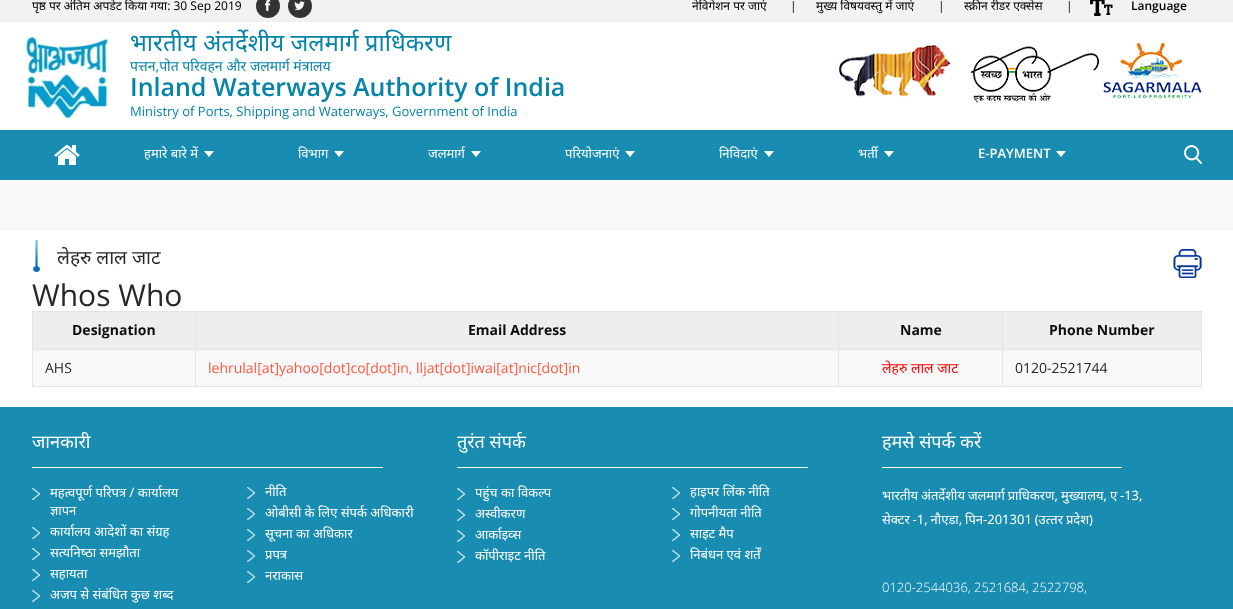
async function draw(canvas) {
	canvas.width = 1233;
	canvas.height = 609;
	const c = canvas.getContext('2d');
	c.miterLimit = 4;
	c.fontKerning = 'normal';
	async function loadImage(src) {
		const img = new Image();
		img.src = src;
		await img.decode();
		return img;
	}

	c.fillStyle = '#fff';
	c.fillRect(0, 0, 1233, 609);
	c.fillStyle = '#f2f2f2';
	c.fillRect(0, 0, 1233, 21);
	c.fillStyle = '#eee';
	c.fillRect(0, 21, 1233, 1);
	c.font = '12px Noto Sans';
	c.fillStyle = '#000';
	c.fillText('पृष्ठ पर अंतिम अपडेट किया गया: 30 Sep 2019', 32, 10);
	c.fillStyle = '#333';
	c.beginPath();
	c.arc(268, 6, 12, 0, 2 * Math.PI);
	c.fill();
	c.drawImage(await loadImage('img1.png'), 265, 0, 6, 11);
	c.beginPath();
	c.arc(300, 6, 12, 0, 2 * Math.PI);
	c.fill();
	c.drawImage(await loadImage('img2.png'), 294, 1, 11, 9);
	c.fillStyle = '#000';
	c.fillText('नेविगेशन पर जाएं', 692, 10);
	c.font = '12px Open Sans';
	c.fillText('|', 790, 10);
	c.font = '12px Noto Sans';
	c.fillText('मुख्य विषयवस्तु में जाएं', 816, 10);
	c.font = '12px Open Sans';
	c.fillText('|', 938, 10);
	c.font = '12px Noto Sans';
	c.fillText('स्क्रीन रीडर एक्सेस', 964, 10);
	c.font = '12px Open Sans';
	c.fillText('|', 1066, 10);
	c.drawImage(await loadImage('img3.png'), 1090, 0, 23, 16);
	c.font = '600 12px Open Sans';
	c.fillText('Language', 1131, 10);
	c.drawImage(await loadImage('img4.png'), 25, 36, 83, 83);
	c.font = '24px Noto Sans';
	c.fillStyle = '#0683a9';
	c.fillText('भारतीय अंतर्देशीय जलमार्ग प्राधिकरण', 130, 51);
	c.font = '14px Noto Sans';
	c.fillText('पत्तन,पोत परिवहन और जलमार्ग मंत्रालय', 130, 71);
	c.font = '600 25px Open Sans';
	c.fillText('Inland Waterways Authority of India', 130, 96);
	c.font = '13px Open Sans';
	c.fillText('Ministry of Ports, Shipping and Waterways, Government of India', 130, 116);
	c.drawImage(await loadImage('img5.png'), 839, 45, 112, 52);
	c.drawImage(await loadImage('img6.png'), 971, 46, 128, 57);
	c.drawImage(await loadImage('img7.png'), 1103, 42, 99, 57);
	c.fillStyle = '#198db1';
	c.fillRect(0, 130, 1233, 50);
	c.drawImage(await loadImage('img8.png'), 54, 145, 26, 20);
	c.font = '13px Noto Sans';
	c.fillStyle = '#fff';
	c.fillText('हमारे बारे में', 144, 158);
	c.drawImage(await loadImage('img9.png'), 204, 151, 10, 6);
	c.fillText('विभाग', 298, 158);
	c.drawImage(await loadImage('img9.png'), 334, 151, 10, 6);
	c.fillText('जलमार्ग', 428, 158);
	c.drawImage(await loadImage('img9.png'), 471, 151, 10, 6);
	c.fillText('परियोजनाएं', 565, 158);
	c.drawImage(await loadImage('img9.png'), 625, 151, 10, 6);
	c.fillText('निविदाएं', 719, 158);
	c.drawImage(await loadImage('img9.png'), 764, 151, 10, 6);
	c.fillText('भर्ती', 858, 158);
	c.drawImage(await loadImage('img9.png'), 884, 151, 10, 6);
	c.font = '600 13px Open Sans';
	c.fillText('E-PAYMENT', 978, 158);
	c.drawImage(await loadImage('img9.png'), 1056, 151, 10, 6);
	c.drawImage(await loadImage('img10.png'), 1184, 145, 18, 19);
	c.fillStyle = '#f8f8f8';
	c.fillRect(0, 180, 1233, 49);
	c.fillStyle = '#f3f3f3';
	c.fillRect(0, 229, 1233, 1);
	c.drawImage(await loadImage('img11.png'), 33, 240, 7, 32);
	c.font = '19px Noto Sans';
	c.fillStyle = '#272727';
	c.fillText('लेहरु लाल जाट', 57, 264);
	c.drawImage(await loadImage('img12.png'), 1173, 249, 29, 29);
	c.font = '30px Open Sans';
	c.fillText('Whos Who', 32, 306);
	for (const [x, y, w, h, color] of [
		[33, 312, 162, 37, '#eee'],
		[1002, 311, 200, 1, '#e4e4e4'],
		[1002, 349, 200, 1, '#e4e4e4'],
		[33, 350, 1168, 36, '#f8f8f8'],
		[1201, 349, 1, 38, '#e4e4e4'],
		[1002, 386, 200, 1, '#e4e4e4'],
		[1002, 349, 1, 38, '#e4e4e4'],
		[838, 349, 165, 1, '#e4e4e4'],
		[1002, 311, 1, 39, '#e4e4e4'],
		[838, 311, 165, 1, '#e4e4e4'],
		[838, 386, 165, 1, '#e4e4e4'],
		[838, 349, 1, 38, '#e4e4e4'],
		[195, 349, 644, 1, '#e4e4e4'],
		[838, 311, 1, 39, '#e4e4e4'],
		[195, 311, 644, 1, '#e4e4e4'],
		[195, 386, 644, 1, '#e4e4e4'],
		[195, 349, 1, 38, '#e4e4e4'],
		[32, 349, 164, 1, '#e4e4e4'],
		[195, 311, 1, 39, '#e4e4e4'],
		[32, 311, 164, 1, '#e4e4e4'],
		[32, 386, 164, 1, '#e4e4e4'],
		[32, 349, 1, 38, '#e4e4e4'],
		[32, 311, 1, 39, '#e4e4e4'],
	]) {
		c.fillStyle = color;
		c.fillRect(x, y, w, h);
	}
	c.font = 'bold 14px Open Sans';
	c.fillStyle = '#0e0e0e';
	c.fillText('Designation', 72, 335);
	c.fillStyle = '#eee';
	c.fillRect(196, 312, 642, 37);
	c.fillStyle = '#0e0e0e';
	c.fillText('Email Address', 468, 335);
	c.fillStyle = '#eee';
	c.fillRect(839, 312, 163, 37);
	c.fillStyle = '#0e0e0e';
	c.fillText('Name', 900, 335);
	c.fillStyle = '#eee';
	c.fillRect(1003, 312, 198, 37);
	c.fillStyle = '#e4e4e4';
	c.fillRect(1201, 311, 1, 39);
	c.fillStyle = '#0e0e0e';
	c.fillText('Phone Number', 1049, 335);
	c.font = '14px Open Sans';
	c.fillStyle = '#272727';
	c.fillText('AHS', 45, 373);
	c.fillStyle = '#fd5940';
	c.fillText('lehrulal[at]yahoo[dot]co[dot]in, lljat[dot]iwai[at]nic[dot]in', 208, 373);
	c.font = '14px Noto Sans';
	c.fillStyle = '#f00';
	c.fillText('लेहरु लाल जाट', 882, 373);
	c.font = '14px Open Sans';
	c.fillStyle = '#272727';
	c.fillText('0120-2521744', 1015, 373);
	c.fillStyle = '#198db1';
	c.fillRect(0, 407, 1233, 202);
	c.fillStyle = '#fff';
	c.fillRect(32, 467, 351, 1);
	c.font = '18px Noto Sans';
	c.fillText('जानकारी', 32, 448);
	c.drawImage(await loadImage('img13.png'), 32, 488, 8, 12);
	c.font = '13px Noto Sans';
	c.fillText('महत्वपूर्ण परिपत्र / कार्यालय', 50, 497);
	c.fillText('ज्ञापन', 50, 515);
	c.drawImage(await loadImage('img13.png'), 32, 527, 8, 12);
	c.fillText('कार्यालय आदेशों का संग्रह', 50, 536);
	c.drawImage(await loadImage('img13.png'), 32, 548, 8, 12);
	c.fillText('सत्‍यनिष्‍ठा समझौता', 50, 557);
	c.drawImage(await loadImage('img13.png'), 32, 569, 8, 12);
	c.fillText('सहायता', 50, 578);
	c.drawImage(await loadImage('img13.png'), 32, 590, 8, 12);
	c.fillText('अजप से संबंधित कुछ शब्द', 50, 599);
	c.drawImage(await loadImage('img13.png'), 247, 487, 8, 12);
	c.fillText('नीति', 265, 496);
	c.drawImage(await loadImage('img13.png'), 247, 508, 8, 12);
	c.fillText('ओबीसी के लिए संपर्क अधिकारी', 265, 517);
	c.drawImage(await loadImage('img13.png'), 247, 529, 8, 12);
	c.fillText('सूचना का अधिकार', 265, 538);
	c.drawImage(await loadImage('img13.png'), 247, 550, 8, 12);
	c.fillText('प्रपत्र', 265, 559);
	c.drawImage(await loadImage('img13.png'), 247, 571, 8, 12);
	c.fillText('नराकास', 265, 580);
	c.fillRect(457, 467, 351, 1);
	c.font = '18px Noto Sans';
	c.fillText('तुरंत संपर्क', 457, 448);
	c.drawImage(await loadImage('img13.png'), 457, 488, 8, 12);
	c.font = '13px Noto Sans';
	c.fillText('पहुंच का विकल्प', 475, 497);
	c.drawImage(await loadImage('img13.png'), 457, 509, 8, 12);
	c.fillText('अस्वीकरण', 475, 518);
	c.drawImage(await loadImage('img13.png'), 457, 530, 8, 12);
	c.fillText('आर्काइव्स', 475, 539);
	c.drawImage(await loadImage('img13.png'), 457, 551, 8, 12);
	c.fillText('कॉपीराइट नीति', 475, 560);
	c.drawImage(await loadImage('img13.png'), 672, 487, 8, 12);
	c.fillText('हाइपर लिंक नीति', 690, 496);
	c.drawImage(await loadImage('img13.png'), 672, 508, 8, 12);
	c.fillText('गोपनीयता नीति', 690, 517);
	c.drawImage(await loadImage('img13.png'), 672, 529, 8, 12);
	c.fillText('साइट मैप', 690, 538);
	c.drawImage(await loadImage('img13.png'), 672, 550, 8, 12);
	c.fillText('निबंधन एवं शर्तें', 690, 559);
	c.fillRect(882, 467, 240, 1);
	c.font = '18px Noto Sans';
	c.fillText('हमसे संपर्क करें', 882, 448);
	c.wordSpacing = '-0.5px';
	c.font = '13px Noto Sans';
	c.fillText('भारतीय अंतर्देशीय जलमार्ग प्राधिकरण, मुख्‍यालय, ए -13,', 882, 500);
	c.fillText('सेक्टर -1, नौएडा, पिन-201301 (उत्‍तर प्रदेश)', 882, 524);
	c.wordSpacing = '0px';
	c.font = '300 13px Open Sans';
	c.fillText('0120-2544036, 2521684, 2522798,', 882, 592);
}

draw(document.querySelector('canvas'));
